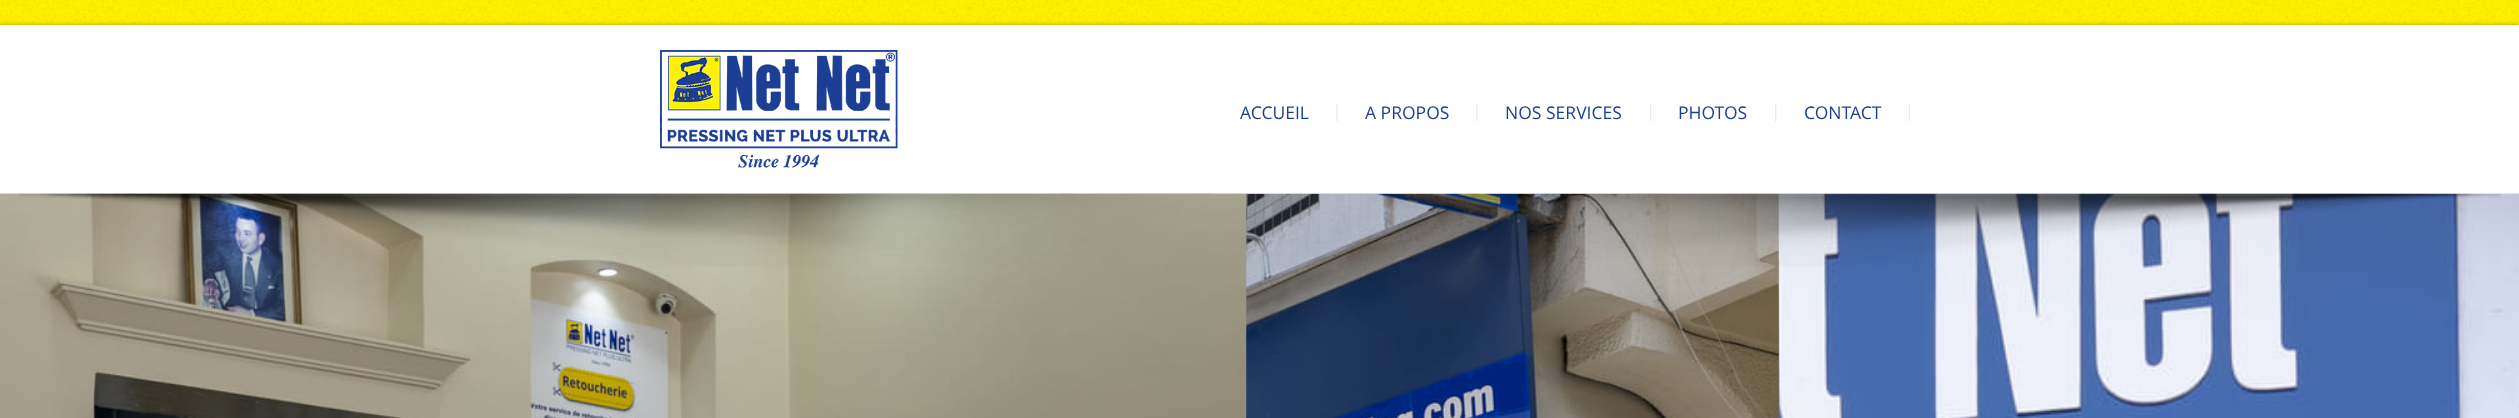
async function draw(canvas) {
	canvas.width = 2519;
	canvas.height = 418;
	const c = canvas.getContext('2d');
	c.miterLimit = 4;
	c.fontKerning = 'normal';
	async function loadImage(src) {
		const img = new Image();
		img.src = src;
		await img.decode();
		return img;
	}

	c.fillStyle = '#fff200';
	c.fillRect(0, 0, 2519, 418);
	c.drawImage(await loadImage('img1.png'), 0, 0, 2519, 25);
	c.fillStyle = '#0000004d';
	c.filter = 'blur(2.5px)';
	c.beginPath();
	c.rect(0, 25, 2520, 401);
	c.fill();
	c.filter = 'none';
	c.fillStyle = '#fff';
	c.fillRect(0, 25, 2519, 168);
	c.fillStyle = '#ebecec';
	c.fillRect(0, 193, 2519, 1);
	c.drawImage(await loadImage('img2.png'), 660, 50, 238, 118);
	c.drawImage(await loadImage('img3.png'), 1336, 104, 2, 17);
	c.font = '17.5px Open Sans';
	c.fillStyle = '#1c3f95';
	c.fillText('ACCUEIL', 1240, 119);
	c.drawImage(await loadImage('img3.png'), 1476, 104, 2, 17);
	c.fillText('A PROPOS', 1365, 119);
	c.drawImage(await loadImage('img4.png'), 1650, 103, 2, 19);
	c.fillText('NOS SERVICES', 1505, 119);
	c.drawImage(await loadImage('img4.png'), 1775, 103, 2, 19);
	c.fillText('PHOTOS', 1678, 119);
	c.drawImage(await loadImage('img5.png'), 1908, 103, 2, 19);
	c.fillText('CONTACT', 1804, 119);
	c.drawImage(await loadImage('img6.png'), 0, 193, 2519, 225);
	c.drawImage(await loadImage('img7.png'), 0, 193, 1445, 1);
	c.drawImage(await loadImage('img8.png'), 0, 193, 1668, 1);
	c.drawImage(await loadImage('img9.png'), 0, 193, 1779, 225);
	c.drawImage(await loadImage('img10.png'), 0, 193, 1247, 225);
	c.drawImage(await loadImage('img11.png'), 18, 193, 2484, 74);
}

draw(document.querySelector('canvas'));
